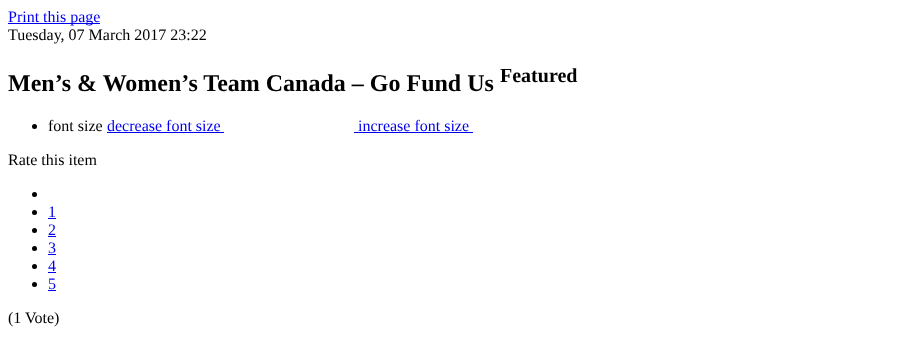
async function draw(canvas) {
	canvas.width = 908;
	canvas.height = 341;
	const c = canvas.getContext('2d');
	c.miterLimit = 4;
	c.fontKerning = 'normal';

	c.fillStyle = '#fff';
	c.fillRect(0, 0, 908, 341);
	c.fillStyle = '#00e';
	c.fillRect(8, 23, 92, 1);
	c.font = '16px Liberation Serif';
	c.fillText('Print this page', 8, 22);
	c.fillStyle = '#000';
	c.fillText('Tuesday, 07 March 2017 23:22', 8, 40);
	c.font = 'bold 24px Liberation Serif';
	c.fillText('Men’s & Women’s Team Canada – Go Fund Us', 8, 91);
	c.font = 'bold 20px Liberation Serif';
	c.fillText('Featured', 500, 82);
	c.beginPath();
	c.arc(34.5, 126.5, 2.5, 0, 2 * Math.PI);
	c.fill();
	c.font = '16px Liberation Serif';
	c.fillText('font size', 48, 131);
	c.fillStyle = '#00e';
	c.fillText('decrease font size', 107, 131);
	c.fillRect(107, 132, 117, 1);
	c.fillRect(354, 132, 119, 1);
	c.fillText('increase font size', 358, 131);
	c.fillStyle = '#000';
	c.fillText('Rate this item', 8, 165);
	c.beginPath();
	c.arc(34.5, 194.5, 2.5, 0, 2 * Math.PI);
	c.fill();
	c.beginPath();
	c.arc(34.5, 212.5, 2.5, 0, 2 * Math.PI);
	c.fill();
	c.fillStyle = '#00e';
	c.fillText('1', 48, 217);
	c.fillRect(48, 218, 8, 1);
	c.fillStyle = '#000';
	c.beginPath();
	c.arc(34.5, 230.5, 2.5, 0, 2 * Math.PI);
	c.fill();
	c.fillStyle = '#00e';
	c.fillText('2', 48, 235);
	c.fillRect(48, 236, 8, 1);
	c.fillStyle = '#000';
	c.beginPath();
	c.arc(34.5, 248.5, 2.5, 0, 2 * Math.PI);
	c.fill();
	c.fillStyle = '#00e';
	c.fillText('3', 48, 253);
	c.fillRect(48, 254, 8, 1);
	c.fillStyle = '#000';
	c.beginPath();
	c.arc(34.5, 266.5, 2.5, 0, 2 * Math.PI);
	c.fill();
	c.fillStyle = '#00e';
	c.fillText('4', 48, 271);
	c.fillRect(48, 272, 8, 1);
	c.fillStyle = '#000';
	c.beginPath();
	c.arc(34.5, 284.5, 2.5, 0, 2 * Math.PI);
	c.fill();
	c.fillStyle = '#00e';
	c.fillText('5', 48, 289);
	c.fillRect(48, 290, 8, 1);
	c.fillStyle = '#000';
	c.fillText('(1 Vote)', 8, 323);
}

draw(document.querySelector('canvas'));
